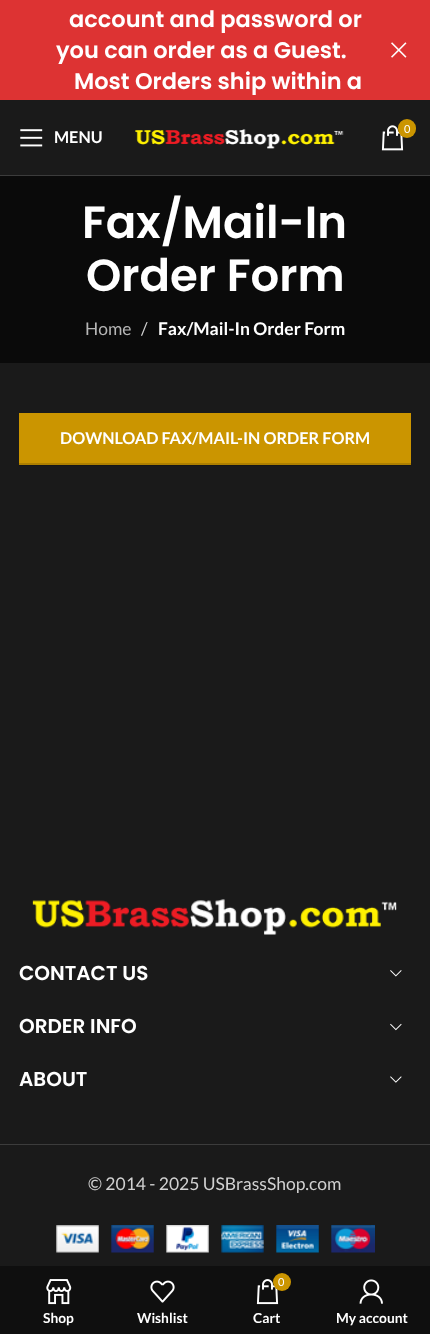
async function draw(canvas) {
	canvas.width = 430;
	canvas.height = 1334;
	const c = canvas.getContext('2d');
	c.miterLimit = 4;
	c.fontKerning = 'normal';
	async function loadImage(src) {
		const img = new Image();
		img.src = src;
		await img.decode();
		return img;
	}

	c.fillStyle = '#1a1a1a';
	c.fillRect(0, 0, 430, 1334);
	c.fillStyle = '#161616';
	c.fillRect(19, 465, 392, 1);
	c.fillStyle = '#d33';
	c.fillRect(0, 0, 430, 100);
	c.font = '600 22.5px Poppins';
	c.fillStyle = '#fff';
	for (const [text, x, y] of [
		['account and password or', 69, 27],
		['you can order as a Guest.', 56, 58],
		['Most Orders ship within a', 74, 89],
	]) {
		c.fillText(text, x, y);
	}
	c.drawImage(await loadImage('img1.png'), 391, 42, 16, 16);
	c.fillStyle = '#3c3c3c';
	c.fillRect(0, 175, 430, 1);
	c.drawImage(await loadImage('img2.png'), 20, 129, 23, 18);
	c.font = 'bold 16.25px Lato';
	c.fillStyle = '#fff';
	c.fillText('MENU', 54, 143);
	c.drawImage(await loadImage('img3.png'), 135, 129, 209, 20);
	c.drawImage(await loadImage('img4.png'), 381, 125, 23, 26);
	c.fillStyle = '#cb9500';
	c.beginPath();
	c.roundRect(398, 119, 18, 19, 9);
	c.fill();
	c.font = '11px Lato';
	c.fillStyle = '#fff';
	c.fillText('0', 404, 133);
	c.fillStyle = '#0a0a0a';
	c.fillRect(0, 176, 430, 187);
	c.font = '600 45px Poppins';
	c.fillStyle = '#fff';
	c.fillText('Fax/Mail-In', 82, 238);
	c.fillText('Order Form', 86, 291);
	c.font = '17.5px Lato';
	c.fillStyle = '#b6b6b6';
	c.fillText('Home', 85, 335);
	c.fillStyle = '#d1d1d1';
	c.fillText('/', 141, 335);
	c.font = 'bold 17.5px Lato';
	c.fillStyle = '#fff';
	c.fillText('Fax/Mail-In Order Form', 158, 335);
	c.fillStyle = '#cb9500';
	c.fillRect(19, 413, 392, 50);
	c.fillStyle = '#ad7f00';
	c.fillRect(19, 463, 392, 2);
	c.font = 'bold 16.25px Lato';
	c.fillStyle = '#fff';
	c.fillText('DOWNLOAD FAX/MAIL-IN ORDER FORM', 60, 444);
	c.drawImage(await loadImage('img5.png'), 32, 899, 365, 36);
	c.font = '600 20px Poppins';
	c.fillText('CONTACT US', 19, 980);
	c.drawImage(await loadImage('img6.png'), 390, 970, 12, 7);
	c.fillText('ORDER INFO', 19, 1033);
	c.drawImage(await loadImage('img7.png'), 390, 1023, 12, 8);
	c.fillText('ABOUT', 19, 1086);
	c.drawImage(await loadImage('img8.png'), 390, 1076, 12, 7);
	c.fillStyle = '#3c3c3c';
	c.fillRect(0, 1144, 430, 1);
	c.font = '17.5px Lato';
	c.fillStyle = '#d1d1d1';
	c.fillText('© 2014 - 2025 USBrassShop.com', 88, 1190);
	c.drawImage(await loadImage('img9.png'), 56, 1225, 319, 28);
	c.fillStyle = '#0f0f0f';
	c.fillRect(0, 1266, 430, 68);
	c.drawImage(await loadImage('img10.png'), 46, 1279, 26, 26);
	c.font = 'bold 13.75px Lato';
	c.fillStyle = '#fff';
	c.fillText('Shop', 43, 1323);
	c.drawImage(await loadImage('img11.png'), 150, 1280, 25, 23);
	c.fillText('Wishlist', 137, 1323);
	c.drawImage(await loadImage('img12.png'), 256, 1279, 23, 26);
	c.fillStyle = '#cb9500';
	c.beginPath();
	c.arc(282, 1282, 9, 0, 2 * Math.PI);
	c.fill();
	c.font = '11px Lato';
	c.fillStyle = '#fff';
	c.fillText('0', 278, 1286);
	c.font = 'bold 13.75px Lato';
	c.fillText('Cart', 253, 1323);
	c.drawImage(await loadImage('img13.png'), 359, 1279, 24, 25);
	c.fillText('My account', 336, 1323);
}

draw(document.querySelector('canvas'));
